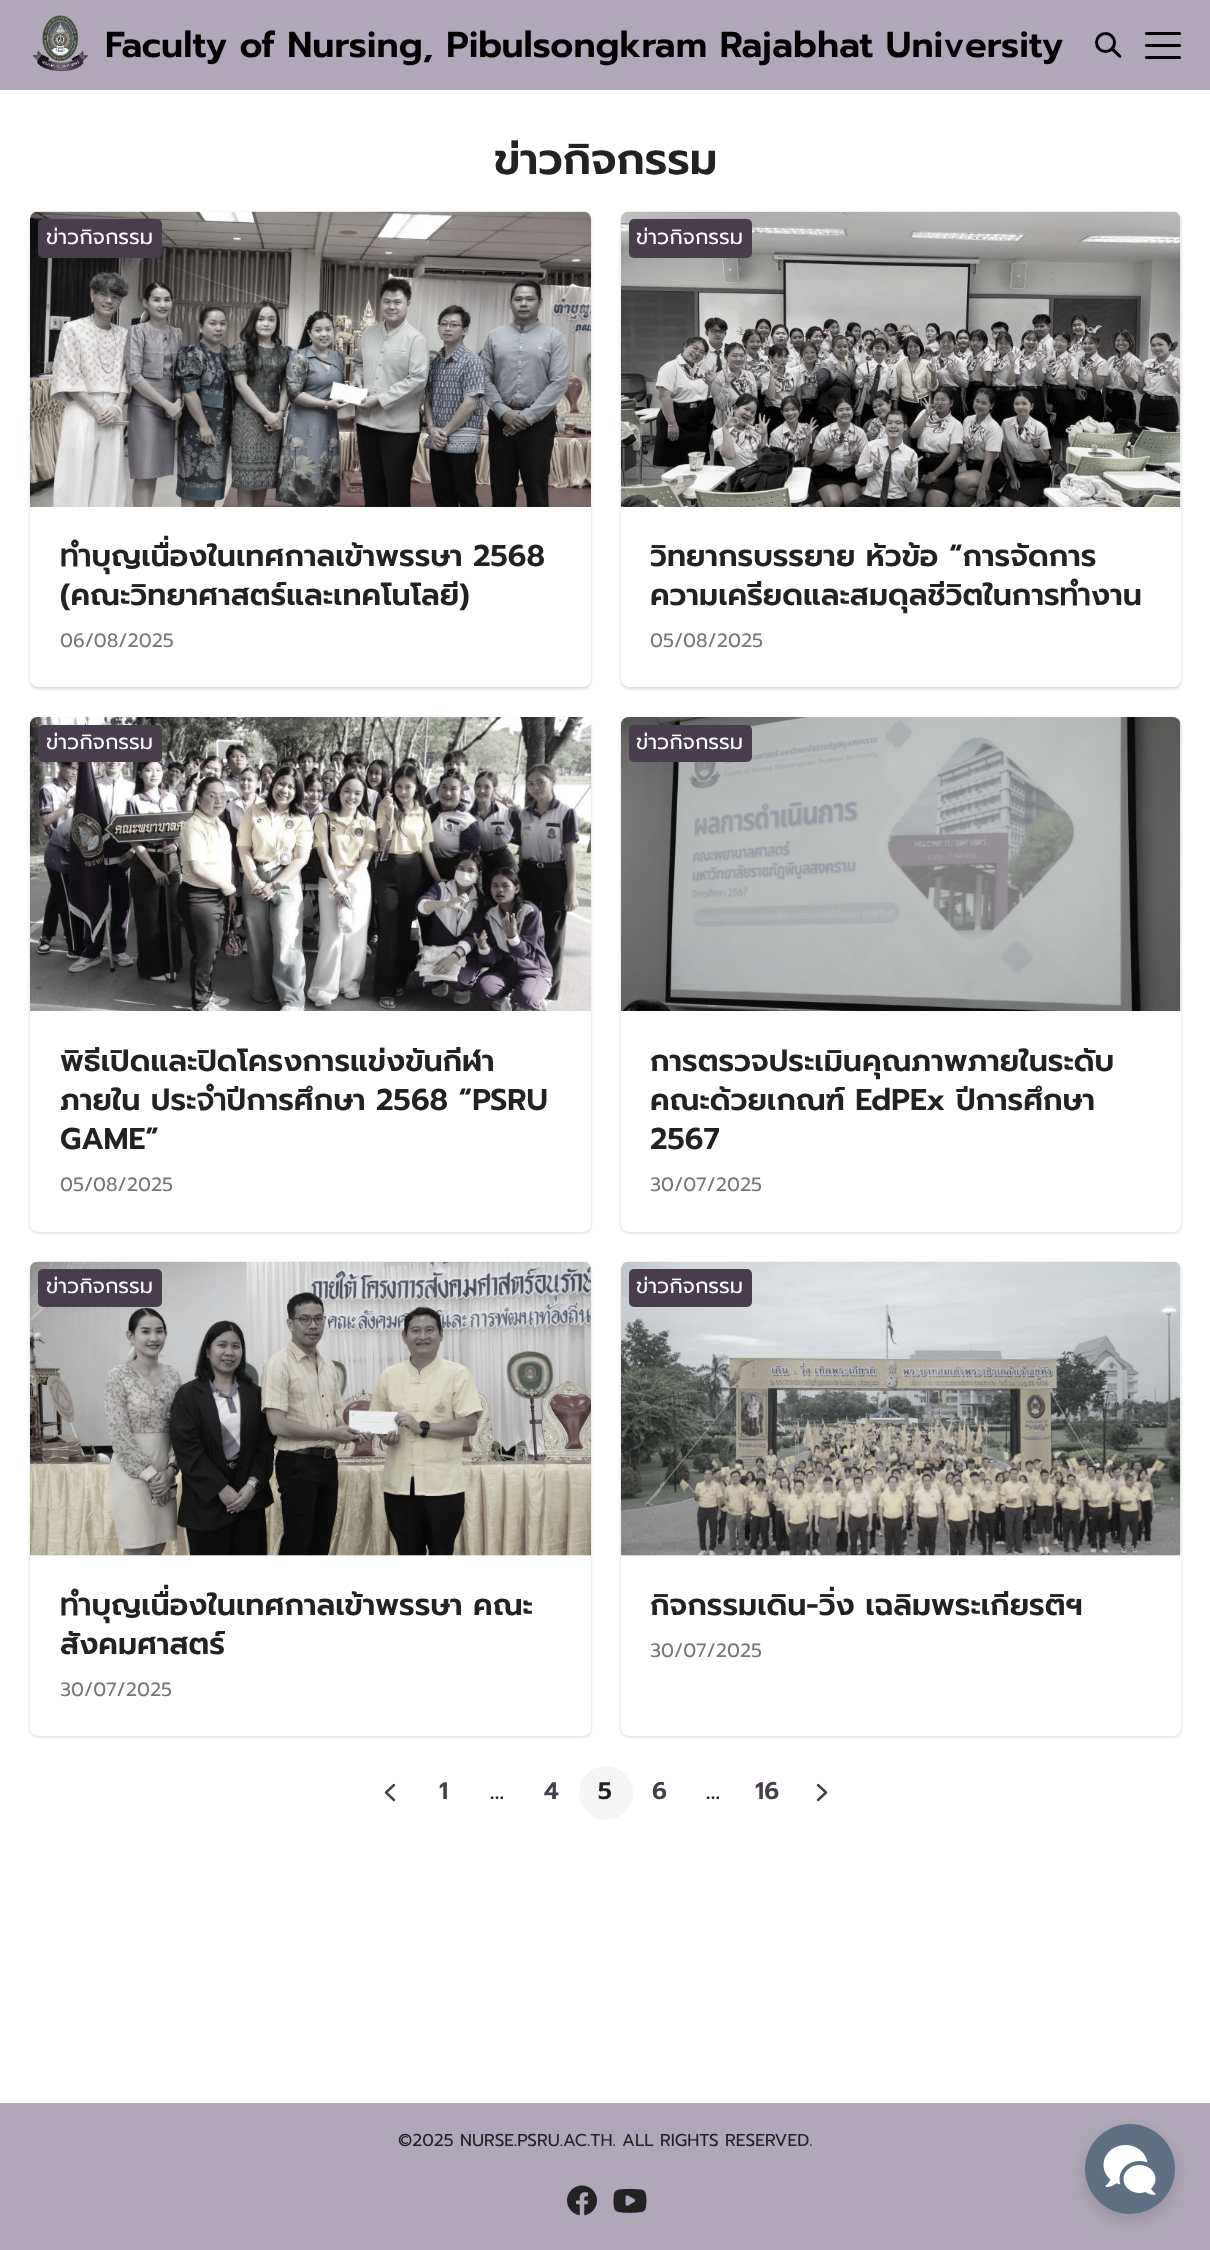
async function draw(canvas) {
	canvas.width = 1210;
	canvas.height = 2250;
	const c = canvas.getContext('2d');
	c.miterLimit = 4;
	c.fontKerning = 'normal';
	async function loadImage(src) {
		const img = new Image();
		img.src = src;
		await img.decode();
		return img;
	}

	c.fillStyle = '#fff';
	c.fillRect(0, 0, 1210, 2250);
	c.fillStyle = '#b0a8b8';
	c.fillRect(0, 0, 1210, 90);
	c.drawImage(await loadImage('img1.png'), 32, 15, 56, 56);
	c.font = '600 36px Prompt';
	c.fillStyle = '#000';
	c.fillText('Faculty of Nursing, Pibulsongkram Rajabhat University', 105, 57);
	c.beginPath();
	c.moveTo(1112, 48.5);
	c.bezierCurveTo(1113.5, 46.5, 1116.5, 51, 1117.5, 52);
	c.bezierCurveTo(1118.5, 53, 1122.5, 55.5, 1121, 57.5);
	c.bezierCurveTo(1119, 59, 1116.5, 55, 1115.5, 54);
	c.bezierCurveTo(1114.5, 53, 1110, 50, 1112, 48.5);
	c.closePath();
	c.fill();
	c.beginPath();
	c.arc(1105.5, 42.5, 9, 0, 2 * Math.PI);
	c.strokeStyle = '#000';
	c.lineWidth = 3;
	c.stroke();
	c.beginPath();
	c.roundRect(1145, 44, 36, 3, 1.5);
	c.fill();
	c.beginPath();
	c.roundRect(1145, 32, 36, 3, 1.5);
	c.fill();
	c.beginPath();
	c.roundRect(1145, 56, 36, 3, 1.5);
	c.fill();
	c.font = '600 43.25px Prompt';
	c.fillStyle = '#222';
	c.fillText('ข่าวกิจกรรม', 494, 174);
	c.fillStyle = '#00000029';
	c.filter = 'blur(1.5px)';
	c.beginPath();
	c.roundRect(30, 213, 561, 476, 8);
	c.fill();
	c.filter = 'none';
	c.fillStyle = '#fff';
	c.beginPath();
	c.roundRect(30, 212, 561, 475, 8);
	c.fill();
	c.drawImage(await loadImage('img2.png'), 30, 211, 561, 296);
	c.fillStyle = '#483e4b';
	c.beginPath();
	c.roundRect(38, 219, 124, 39, 5);
	c.fill();
	c.font = '21px Prompt';
	c.fillStyle = '#fff';
	c.fillText('ข่าวกิจกรรม', 46, 244);
	c.font = '600 30px Prompt';
	c.fillStyle = '#222';
	c.fillText('ทำบุญเนื่องในเทศกาลเข้าพรรษา 2568', 60, 566);
	c.fillText('(คณะวิทยาศาสตร์และเทคโนโลยี)', 60, 605);
	c.font = '19.25px Prompt';
	c.fillStyle = '#757677';
	c.fillText('06/08/2025', 60, 647);
	c.fillStyle = '#00000029';
	c.filter = 'blur(1.5px)';
	c.beginPath();
	c.roundRect(621, 213, 560, 476, 8);
	c.fill();
	c.filter = 'none';
	c.fillStyle = '#fff';
	c.beginPath();
	c.roundRect(621, 212, 560, 475, 8);
	c.fill();
	c.fillStyle = '#f5f5f5';
	c.beginPath();
	c.roundRect(621, 212, 560, 295, [8, 8, 0, 0]);
	c.fill();
	c.drawImage(await loadImage('img3.png'), 621, 211, 560, 296);
	c.fillStyle = '#483e4b';
	c.beginPath();
	c.roundRect(629, 219, 123, 39, 5);
	c.fill();
	c.font = '21px Prompt';
	c.fillStyle = '#fff';
	c.fillText('ข่าวกิจกรรม', 636, 244);
	c.font = '600 30px Prompt';
	c.fillStyle = '#222';
	c.fillText('วิทยากรบรรยาย หัวข้อ “การจัดการ', 650, 566);
	c.fillText('ความเครียดและสมดุลชีวิตในการทำงาน', 650, 605);
	c.font = '19.25px Prompt';
	c.fillStyle = '#757677';
	c.fillText('05/08/2025', 650, 647);
	c.fillStyle = '#00000029';
	c.filter = 'blur(1.5px)';
	c.beginPath();
	c.roundRect(30, 719, 561, 514, 8);
	c.fill();
	c.filter = 'none';
	c.fillStyle = '#fff';
	c.beginPath();
	c.roundRect(30, 717, 561, 515, 8);
	c.fill();
	c.drawImage(await loadImage('img4.png'), 30, 717, 561, 294);
	c.fillStyle = '#483e4b';
	c.beginPath();
	c.roundRect(38, 725, 124, 37, 5);
	c.fill();
	c.font = '21px Prompt';
	c.fillStyle = '#fff';
	c.fillText('ข่าวกิจกรรม', 46, 749);
	c.font = '600 30px Prompt';
	c.fillStyle = '#222';
	for (const [text, x, y] of [
		['พิธีเปิดและปิดโครงการแข่งขันกีฬา', 60, 1071],
		['ภายใน ประจำปีการศึกษา 2568 “PSRU', 60, 1110],
		['GAME”', 60, 1149],
	]) {
		c.fillText(text, x, y);
	}
	c.font = '19.25px Prompt';
	c.fillStyle = '#757677';
	c.fillText('05/08/2025', 60, 1191);
	c.fillStyle = '#00000029';
	c.filter = 'blur(1.5px)';
	c.beginPath();
	c.roundRect(621, 719, 560, 514, 8);
	c.fill();
	c.filter = 'none';
	c.fillStyle = '#fff';
	c.beginPath();
	c.roundRect(621, 717, 560, 515, 8);
	c.fill();
	c.fillStyle = '#f5f5f5';
	c.beginPath();
	c.roundRect(621, 717, 560, 294, [8, 8, 0, 0]);
	c.fill();
	c.drawImage(await loadImage('img5.png'), 621, 717, 560, 294);
	c.fillStyle = '#483e4b';
	c.beginPath();
	c.roundRect(629, 725, 123, 37, 5);
	c.fill();
	c.font = '21px Prompt';
	c.fillStyle = '#fff';
	c.fillText('ข่าวกิจกรรม', 636, 749);
	c.font = '600 30px Prompt';
	c.fillStyle = '#222';
	for (const [text, x, y] of [
		['การตรวจประเมินคุณภาพภายในระดับ', 650, 1071],
		['คณะด้วยเกณฑ์ EdPEx ปีการศึกษา', 650, 1110],
		['2567', 650, 1149],
	]) {
		c.fillText(text, x, y);
	}
	c.font = '19.25px Prompt';
	c.fillStyle = '#757677';
	c.fillText('30/07/2025', 650, 1191);
	c.fillStyle = '#00000029';
	c.filter = 'blur(1.5px)';
	c.beginPath();
	c.roundRect(30, 1263, 561, 474, 8);
	c.fill();
	c.filter = 'none';
	c.fillStyle = '#fff';
	c.beginPath();
	c.roundRect(30, 1262, 561, 474, 8);
	c.fill();
	c.fillStyle = '#f5f5f5';
	c.beginPath();
	c.roundRect(30, 1262, 561, 294, [8, 8, 0, 0]);
	c.fill();
	c.drawImage(await loadImage('img6.png'), 30, 1261, 561, 295);
	c.fillStyle = '#483e4b';
	c.beginPath();
	c.roundRect(38, 1269, 124, 38, 5);
	c.fill();
	c.font = '21px Prompt';
	c.fillStyle = '#fff';
	c.fillText('ข่าวกิจกรรม', 46, 1293);
	c.font = '600 30px Prompt';
	c.fillStyle = '#222';
	c.fillText('ทำบุญเนื่องในเทศกาลเข้าพรรษา คณะ', 60, 1615);
	c.fillText('สังคมศาสตร์', 60, 1654);
	c.font = '19.25px Prompt';
	c.fillStyle = '#757677';
	c.fillText('30/07/2025', 60, 1696);
	c.fillStyle = '#00000029';
	c.filter = 'blur(1.5px)';
	c.beginPath();
	c.roundRect(621, 1263, 560, 474, 8);
	c.fill();
	c.filter = 'none';
	c.fillStyle = '#fff';
	c.beginPath();
	c.roundRect(621, 1262, 560, 474, 8);
	c.fill();
	c.fillStyle = '#f5f5f5';
	c.beginPath();
	c.roundRect(621, 1262, 560, 294, [8, 8, 0, 0]);
	c.fill();
	c.drawImage(await loadImage('img7.png'), 621, 1261, 560, 295);
	c.fillStyle = '#483e4b';
	c.beginPath();
	c.roundRect(629, 1269, 123, 38, 5);
	c.fill();
	c.font = '21px Prompt';
	c.fillStyle = '#fff';
	c.fillText('ข่าวกิจกรรม', 636, 1293);
	c.font = '600 30px Prompt';
	c.fillStyle = '#222';
	c.fillText('กิจกรรมเดิน-วิ่ง เฉลิมพระเกียรติฯ', 650, 1615);
	c.font = '19.25px Prompt';
	c.fillStyle = '#757677';
	c.fillText('30/07/2025', 650, 1657);
	c.beginPath();
	c.moveTo(394, 1800);
	c.lineTo(386, 1792.5);
	c.lineTo(394, 1785);
	c.strokeStyle = '#483e4b';
	c.lineWidth = 2.5;
	c.lineCap = 'round';
	c.lineJoin = 'round';
	c.stroke();
	c.font = '600 24px Prompt';
	c.fillStyle = '#483e4b';
	c.fillText('1', 439, 1799);
	c.fillStyle = '#222';
	c.fillText('…', 490, 1799);
	c.fillStyle = '#483e4b';
	c.fillText('4', 544, 1799);
	c.fillStyle = '#f5f5f5';
	c.beginPath();
	c.arc(606, 1793, 27, 0, 2 * Math.PI);
	c.fill();
	c.fillStyle = '#222';
	c.fillText('5', 598, 1799);
	c.fillStyle = '#483e4b';
	c.fillText('6', 652, 1799);
	c.fillStyle = '#222';
	c.fillText('…', 706, 1799);
	c.fillStyle = '#483e4b';
	c.fillText('16', 755, 1799);
	c.beginPath();
	c.moveTo(818, 1800);
	c.lineTo(826, 1792.5);
	c.lineTo(818, 1785);
	c.stroke();
	c.fillStyle = '#b0a8b8';
	c.fillRect(0, 2103, 1210, 147);
	c.font = '17.25px Prompt';
	c.fillStyle = '#222';
	c.fillText('©2025 NURSE.PSRU.AC.TH. ALL RIGHTS RESERVED.', 398, 2146);
	c.drawImage(await loadImage('img8.png'), 567, 2185, 30, 31);
	c.drawImage(await loadImage('img9.png'), 613, 2188, 34, 25);
	c.fillStyle = '#00000026';
	c.filter = 'blur(9px)';
	c.beginPath();
	c.roundRect(1085, 2130, 90, 90, 45);
	c.fill();
	c.filter = 'none';
	c.fillStyle = '#5e6f83';
	c.beginPath();
	c.arc(1130, 2169, 45, 0, 2 * Math.PI);
	c.fill();
	c.drawImage(await loadImage('img10.png'), 1103, 2145, 53, 50);
}

draw(document.querySelector('canvas'));
